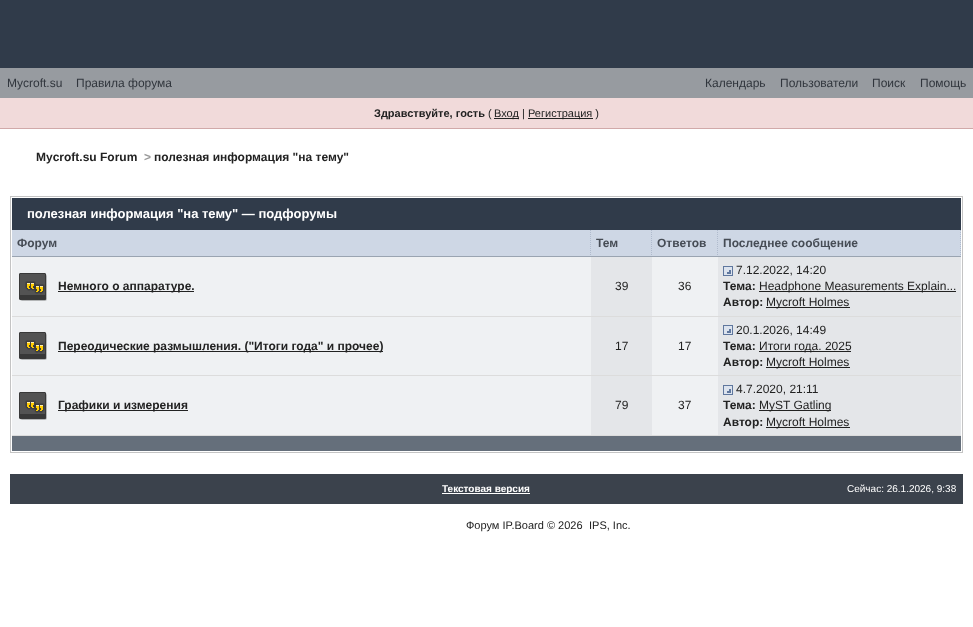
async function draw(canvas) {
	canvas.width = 973;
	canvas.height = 627;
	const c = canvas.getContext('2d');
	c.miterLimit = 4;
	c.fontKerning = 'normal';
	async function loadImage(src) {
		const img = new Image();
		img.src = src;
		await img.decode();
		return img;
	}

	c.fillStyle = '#fff';
	c.fillRect(0, 0, 973, 627);
	c.fillStyle = '#303b4a';
	c.fillRect(0, 0, 973, 68);
	c.fillStyle = '#979ba0';
	c.fillRect(0, 68, 973, 30);
	c.font = '12px Liberation Sans';
	c.fillStyle = '#31363d';
	for (const [text, x, y] of [
		['Mycroft.su', 7, 87],
		['Правила форума', 76, 87],
		['Календарь', 705, 87],
		['Пользователи', 780, 87],
		['Поиск', 872, 87],
		['Помощь', 920, 87],
	]) {
		c.fillText(text, x, y);
	}
	c.fillStyle = '#f1dada';
	c.fillRect(0, 98, 973, 30);
	c.fillStyle = '#d1a9a9';
	c.fillRect(0, 128, 973, 1);
	c.font = 'bold 11px Liberation Sans';
	c.fillStyle = '#222';
	c.fillText('Здравствуйте, гость', 374, 117);
	c.font = '11px Liberation Sans';
	c.fillText('(', 488, 117);
	c.fillRect(494, 118, 25, 1);
	c.fillText('Вход |', 494, 117);
	c.fillRect(528, 118, 65, 1);
	c.fillText('Регистрация )', 528, 117);
	c.font = 'bold 12px Liberation Sans';
	c.fillText('Mycroft.su Forum', 36, 161);
	c.fillStyle = '#999';
	c.fillText('>', 144, 161);
	c.fillStyle = '#222';
	c.fillText('полезная информация "на тему"', 154, 161);
	c.strokeStyle = '#c4c4c4';
	c.strokeRect(10.5, 196.5, 952, 256);
	c.fillStyle = '#303b4a';
	c.fillRect(12, 198, 949, 32);
	c.font = 'bold 13px Liberation Sans';
	c.fillStyle = '#fff';
	c.fillText('полезная информация "на тему" — подфорумы', 27, 218);
	c.fillStyle = '#ced7e5';
	c.fillRect(12, 230, 949, 26);
	c.beginPath();
	c.moveTo(590.5, 230);
	c.lineTo(590.5, 257);
	c.strokeStyle = '#b0bbcd';
	c.setLineDash([1, 1]);
	c.stroke();
	c.fillStyle = '#9aa4b1';
	c.fillRect(12, 256, 579, 1);
	c.font = 'bold 12px Liberation Sans';
	c.fillStyle = '#464c55';
	c.fillText('Форум', 17, 247);
	c.beginPath();
	c.moveTo(651.5, 230);
	c.lineTo(651.5, 257);
	c.stroke();
	c.fillStyle = '#9aa4b1';
	c.fillRect(591, 256, 61, 1);
	c.fillStyle = '#464c55';
	c.fillText('Тем', 596, 247);
	c.beginPath();
	c.moveTo(717.5, 230);
	c.lineTo(717.5, 257);
	c.stroke();
	c.fillStyle = '#9aa4b1';
	c.fillRect(652, 256, 66, 1);
	c.fillStyle = '#464c55';
	c.fillText('Ответов', 657, 247);
	c.beginPath();
	c.moveTo(960.5, 230);
	c.lineTo(960.5, 257);
	c.stroke();
	c.fillStyle = '#9aa4b1';
	c.fillRect(718, 256, 243, 1);
	c.fillStyle = '#464c55';
	c.fillText('Последнее сообщение', 723, 247);
	c.fillStyle = '#eff1f3';
	c.fillRect(12, 257, 579, 59);
	c.fillStyle = '#dcdcdc';
	c.fillRect(12, 316, 949, 1);
	c.drawImage(await loadImage('img1.png'), 19, 273, 28, 28);
	c.fillStyle = '#222';
	c.fillRect(58, 291, 136, 1);
	c.fillText('Немного о аппаратуре.', 58, 290);
	c.fillStyle = '#e4e6e9';
	c.fillRect(591, 257, 61, 59);
	c.font = '12px Liberation Sans';
	c.fillStyle = '#222';
	c.fillText('39', 615, 290);
	c.fillStyle = '#eff1f3';
	c.fillRect(652, 257, 66, 59);
	c.fillStyle = '#222';
	c.fillText('36', 678, 290);
	c.fillStyle = '#e4e6e9';
	c.fillRect(718, 257, 243, 59);
	c.drawImage(await loadImage('img2.png'), 723, 266, 10, 10);
	c.fillStyle = '#222';
	c.fillText('7.12.2022, 14:20', 736, 274);
	c.font = 'bold 12px Liberation Sans';
	c.fillText('Тема:', 723, 290);
	c.fillRect(759, 291, 197, 1);
	c.font = '12px Liberation Sans';
	c.fillText('Headphone Measurements Explain...', 759, 290);
	c.font = 'bold 12px Liberation Sans';
	c.fillText('Автор:', 723, 306);
	c.fillRect(766, 307, 84, 1);
	c.font = '12px Liberation Sans';
	c.fillText('Mycroft Holmes', 766, 306);
	c.fillStyle = '#eff1f3';
	c.fillRect(12, 317, 579, 58);
	c.fillStyle = '#dcdcdc';
	c.fillRect(12, 375, 949, 1);
	c.drawImage(await loadImage('img1.png'), 19, 332, 28, 28);
	c.fillStyle = '#222';
	c.fillRect(58, 351, 325, 1);
	c.font = 'bold 12px Liberation Sans';
	c.fillText('Переодические размышления. ("Итоги года" и прочее)', 58, 350);
	c.fillStyle = '#e4e6e9';
	c.fillRect(591, 317, 61, 58);
	c.font = '12px Liberation Sans';
	c.fillStyle = '#222';
	c.fillText('17', 615, 350);
	c.fillStyle = '#eff1f3';
	c.fillRect(652, 317, 66, 58);
	c.fillStyle = '#222';
	c.fillText('17', 678, 350);
	c.fillStyle = '#e4e6e9';
	c.fillRect(718, 317, 243, 58);
	c.drawImage(await loadImage('img2.png'), 723, 325, 10, 10);
	c.fillStyle = '#222';
	c.fillText('20.1.2026, 14:49', 736, 334);
	c.font = 'bold 12px Liberation Sans';
	c.fillText('Тема:', 723, 350);
	c.fillRect(759, 351, 92, 1);
	c.font = '12px Liberation Sans';
	c.fillText('Итоги года. 2025', 759, 350);
	c.font = 'bold 12px Liberation Sans';
	c.fillText('Автор:', 723, 366);
	c.fillRect(766, 367, 84, 1);
	c.font = '12px Liberation Sans';
	c.fillText('Mycroft Holmes', 766, 366);
	c.fillStyle = '#eff1f3';
	c.fillRect(12, 376, 579, 59);
	c.fillStyle = '#dcdcdc';
	c.fillRect(12, 435, 949, 1);
	c.drawImage(await loadImage('img1.png'), 19, 392, 28, 28);
	c.fillStyle = '#222';
	c.fillRect(58, 410, 130, 1);
	c.font = 'bold 12px Liberation Sans';
	c.fillText('Графики и измерения', 58, 409);
	c.fillStyle = '#e4e6e9';
	c.fillRect(591, 376, 61, 59);
	c.font = '12px Liberation Sans';
	c.fillStyle = '#222';
	c.fillText('79', 615, 409);
	c.fillStyle = '#eff1f3';
	c.fillRect(652, 376, 66, 59);
	c.fillStyle = '#222';
	c.fillText('37', 678, 409);
	c.fillStyle = '#e4e6e9';
	c.fillRect(718, 376, 243, 59);
	c.drawImage(await loadImage('img2.png'), 723, 385, 10, 10);
	c.fillStyle = '#222';
	c.fillText('4.7.2020, 21:11', 736, 393);
	c.font = 'bold 12px Liberation Sans';
	c.fillText('Тема:', 723, 409);
	c.fillRect(759, 410, 72, 1);
	c.font = '12px Liberation Sans';
	c.fillText('MyST Gatling', 759, 409);
	c.font = 'bold 12px Liberation Sans';
	c.fillText('Автор:', 723, 426);
	c.fillRect(766, 427, 84, 1);
	c.font = '12px Liberation Sans';
	c.fillText('Mycroft Holmes', 766, 426);
	for (const [x, y, w, h, color] of [
		[12, 436, 949, 15, '#656f7b'],
		[10, 474, 953, 30, '#3b424c'],
		[442, 493, 88, 1, '#fff'],
	]) {
		c.fillStyle = color;
		c.fillRect(x, y, w, h);
	}
	c.font = 'bold 10px Liberation Sans';
	c.fillText('Текстовая версия', 442, 492);
	c.font = '10px Liberation Sans';
	c.fillText('Сейчас: 26.1.2026, 9:38', 847, 492);
	c.font = '11px Liberation Sans';
	c.fillStyle = '#222';
	c.fillText('Форум IP.Board © 2026', 466, 529);
	c.fillText('IPS, Inc.', 589, 529);
}

draw(document.querySelector('canvas'));
